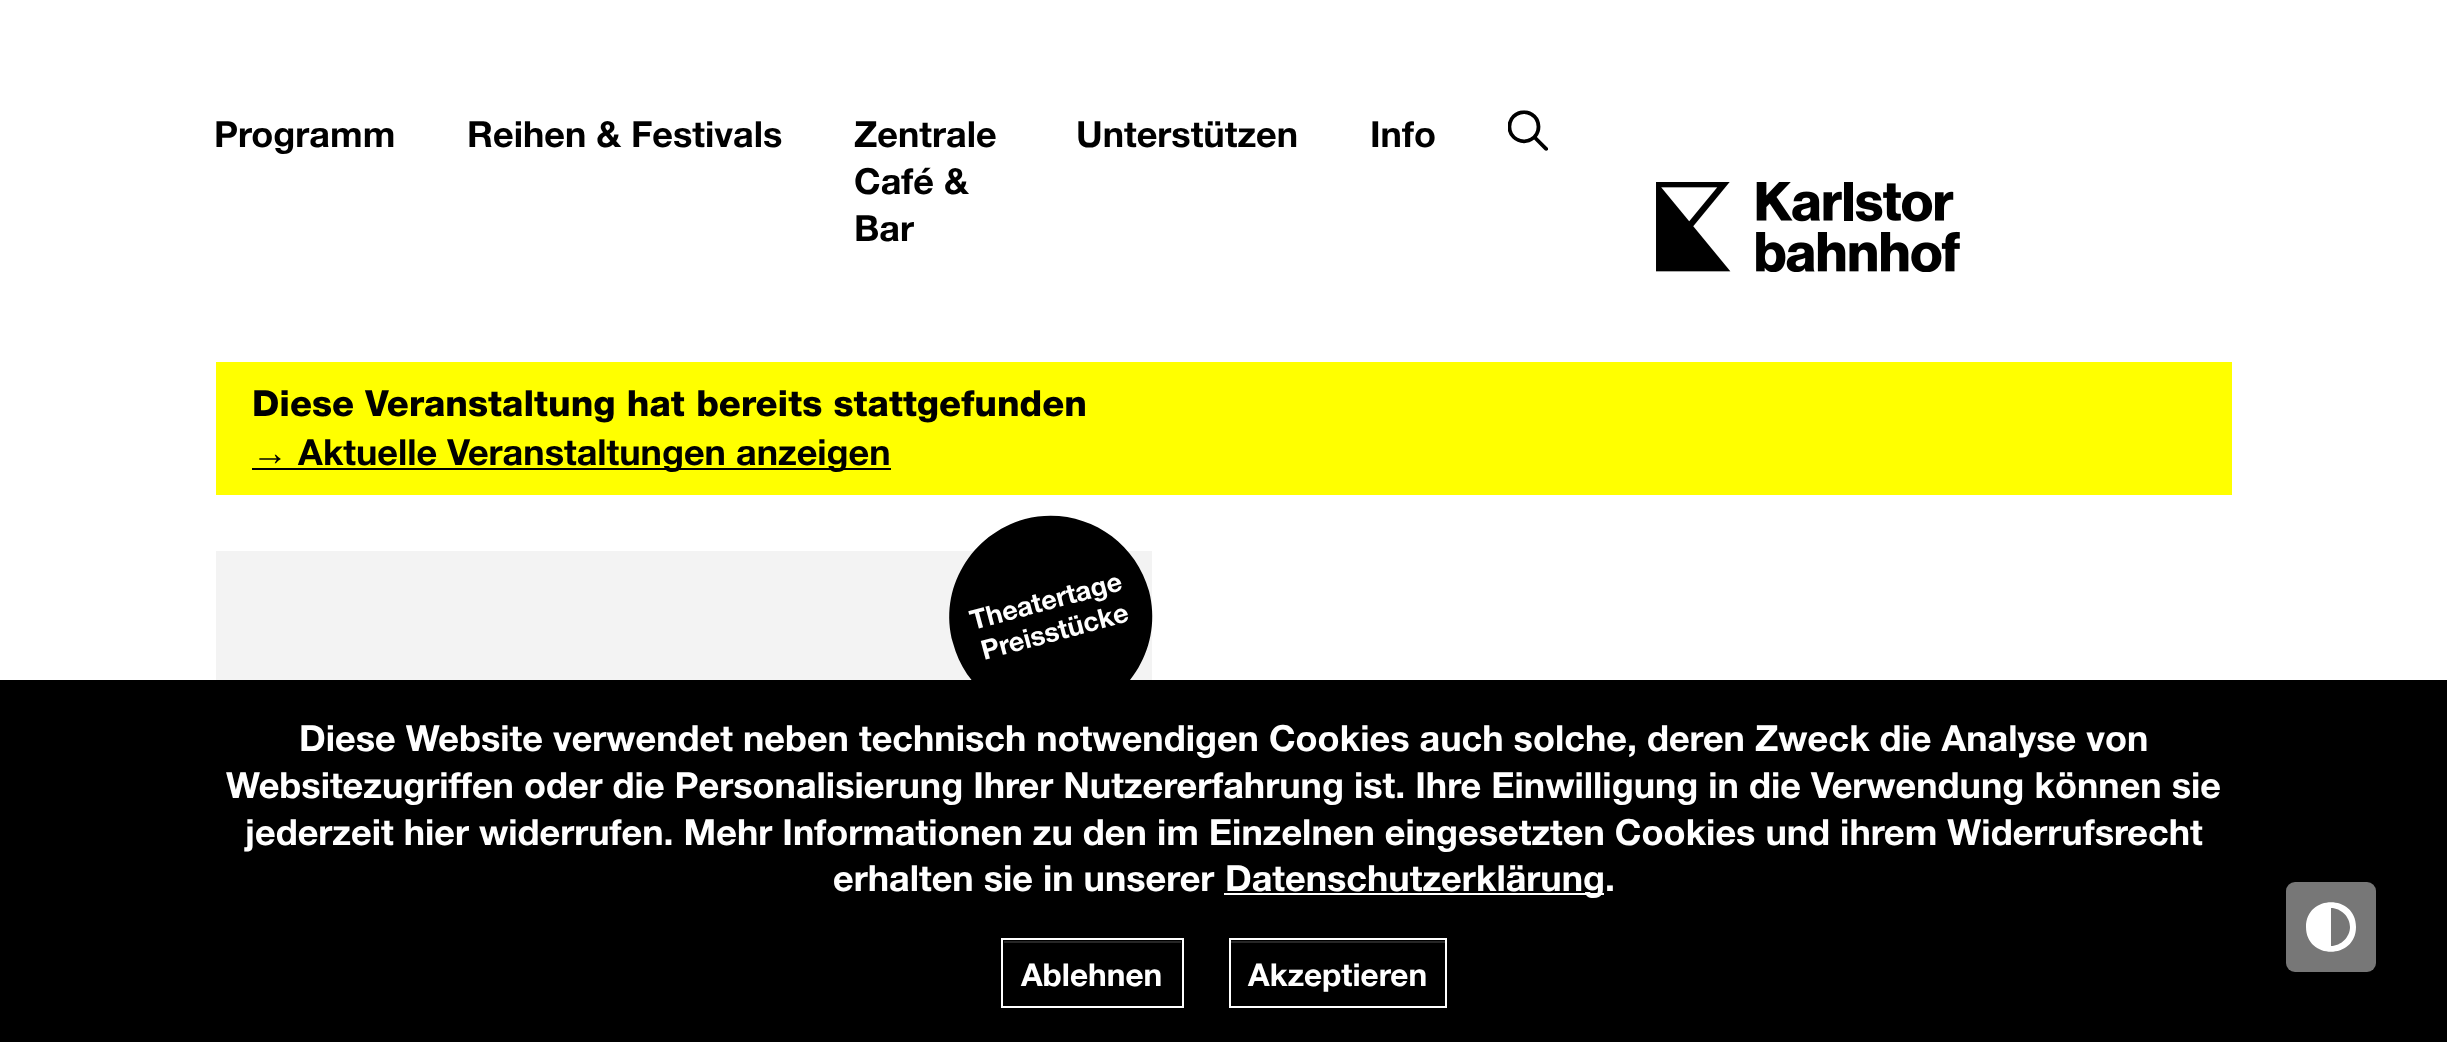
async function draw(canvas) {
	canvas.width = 2447;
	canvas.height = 1042;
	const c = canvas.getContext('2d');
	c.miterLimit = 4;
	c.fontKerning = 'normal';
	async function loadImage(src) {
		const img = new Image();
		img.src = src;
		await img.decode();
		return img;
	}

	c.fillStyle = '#fff';
	c.fillRect(0, 0, 2447, 1042);
	c.font = 'bold 36px Helvetica Neue';
	c.fillStyle = '#000';
	for (const [text, x, y] of [
		['Programm', 214, 147],
		['Reihen & Festivals', 467, 147],
		['Zentrale', 854, 147],
		['Café &', 854, 194],
		['Bar', 854, 241],
		['Unterstützen', 1076, 147],
		['Info', 1370, 147],
	]) {
		c.fillText(text, x, y);
	}
	c.drawImage(await loadImage('img1.png'), 1508, 110, 40, 41);
	c.drawImage(await loadImage('img2.png'), 1656, 182, 304, 90);
	c.fillStyle = '#ff0';
	c.fillRect(216, 362, 2016, 133);
	c.font = '900 36px Helvetica Neue';
	c.fillStyle = '#000';
	c.fillText('Diese Veranstaltung hat bereits stattgefunden', 252, 416);
	c.font = 'bold 36px Liberation Sans';
	c.fillText('→', 252, 465);
	c.fillRect(252, 468, 639, 2);
	c.font = 'bold 36px Helvetica Neue';
	c.fillText('Aktuelle Veranstaltungen anzeigen', 298, 465);
	c.fillStyle = '#f3f3f3';
	c.fillRect(216, 551, 936, 129);
	c.fillStyle = '#000';
	c.beginPath();
	c.moveTo(1025, 519);
	c.bezierCurveTo(1079, 505, 1134, 537, 1149, 591);
	c.bezierCurveTo(1163, 645, 1131, 700, 1077, 715);
	c.bezierCurveTo(1023, 729, 967, 697, 953, 643);
	c.bezierCurveTo(938, 589, 971, 534, 1025, 519);
	c.closePath();
	c.fill();
	c.font = 'bold 27px Helvetica Neue';
	c.fillStyle = '#fff';
	c.save();
	c.translate(973, 630);
	c.rotate(-15 * Math.PI / 180);
	c.fillText('Theatertage', 0, 0);
	c.restore();
	c.save();
	c.translate(984, 660);
	c.rotate(-15 * Math.PI / 180);
	c.fillText('Preisstücke', 0, 0);
	c.restore();
	c.fillStyle = '#000';
	c.fillRect(0, 680, 2447, 362);
	c.font = 'bold 36px Helvetica Neue';
	c.fillStyle = '#fff';
	for (const [text, x, y] of [
		['Diese Website verwendet neben technisch notwendigen Cookies auch solche, deren Zweck die Analyse von', 299, 751],
		['Websitezugriffen oder die Personalisierung Ihrer Nutzererfahrung ist. Ihre Einwilligung in die Verwendung können sie', 226, 798],
		['jederzeit hier widerrufen. Mehr Informationen zu den im Einzelnen eingesetzten Cookies und ihrem Widerrufsrecht', 245, 845],
		['erhalten sie in unserer', 833, 891],
	]) {
		c.fillText(text, x, y);
	}
	c.fillRect(1224, 893, 380, 2);
	c.fillText('Datenschutzerklärung.', 1225, 891);
	c.fillStyle = '#262626';
	c.fillRect(1004, 941, 177, 2);
	c.strokeStyle = '#fff';
	c.lineWidth = 2;
	c.strokeRect(1002, 939, 181, 68);
	c.font = 'bold 31.5px Helvetica Neue';
	c.fillStyle = '#fff';
	c.fillText('Ablehnen', 1021, 986);
	c.fillStyle = '#262626';
	c.fillRect(1231, 941, 214, 2);
	c.strokeRect(1230, 939, 216, 68);
	c.fillStyle = '#fff';
	c.fillText('Akzeptieren', 1248, 986);
	c.fillStyle = '#777';
	c.beginPath();
	c.roundRect(2286, 882, 90, 90, 9);
	c.fill();
	c.fillStyle = '#fff';
	c.beginPath();
	c.moveTo(2350, 927);
	c.bezierCurveTo(2350, 917, 2341, 908, 2331, 908);
	c.lineTo(2331, 946);
	c.bezierCurveTo(2341, 946, 2350, 937, 2350, 927);
	c.closePath();
	c.moveTo(2306, 927);
	c.bezierCurveTo(2306, 894, 2356, 894, 2356, 927);
	c.bezierCurveTo(2356, 960, 2306, 960, 2306, 927);
	c.closePath();
	c.fill();
}

draw(document.querySelector('canvas'));
